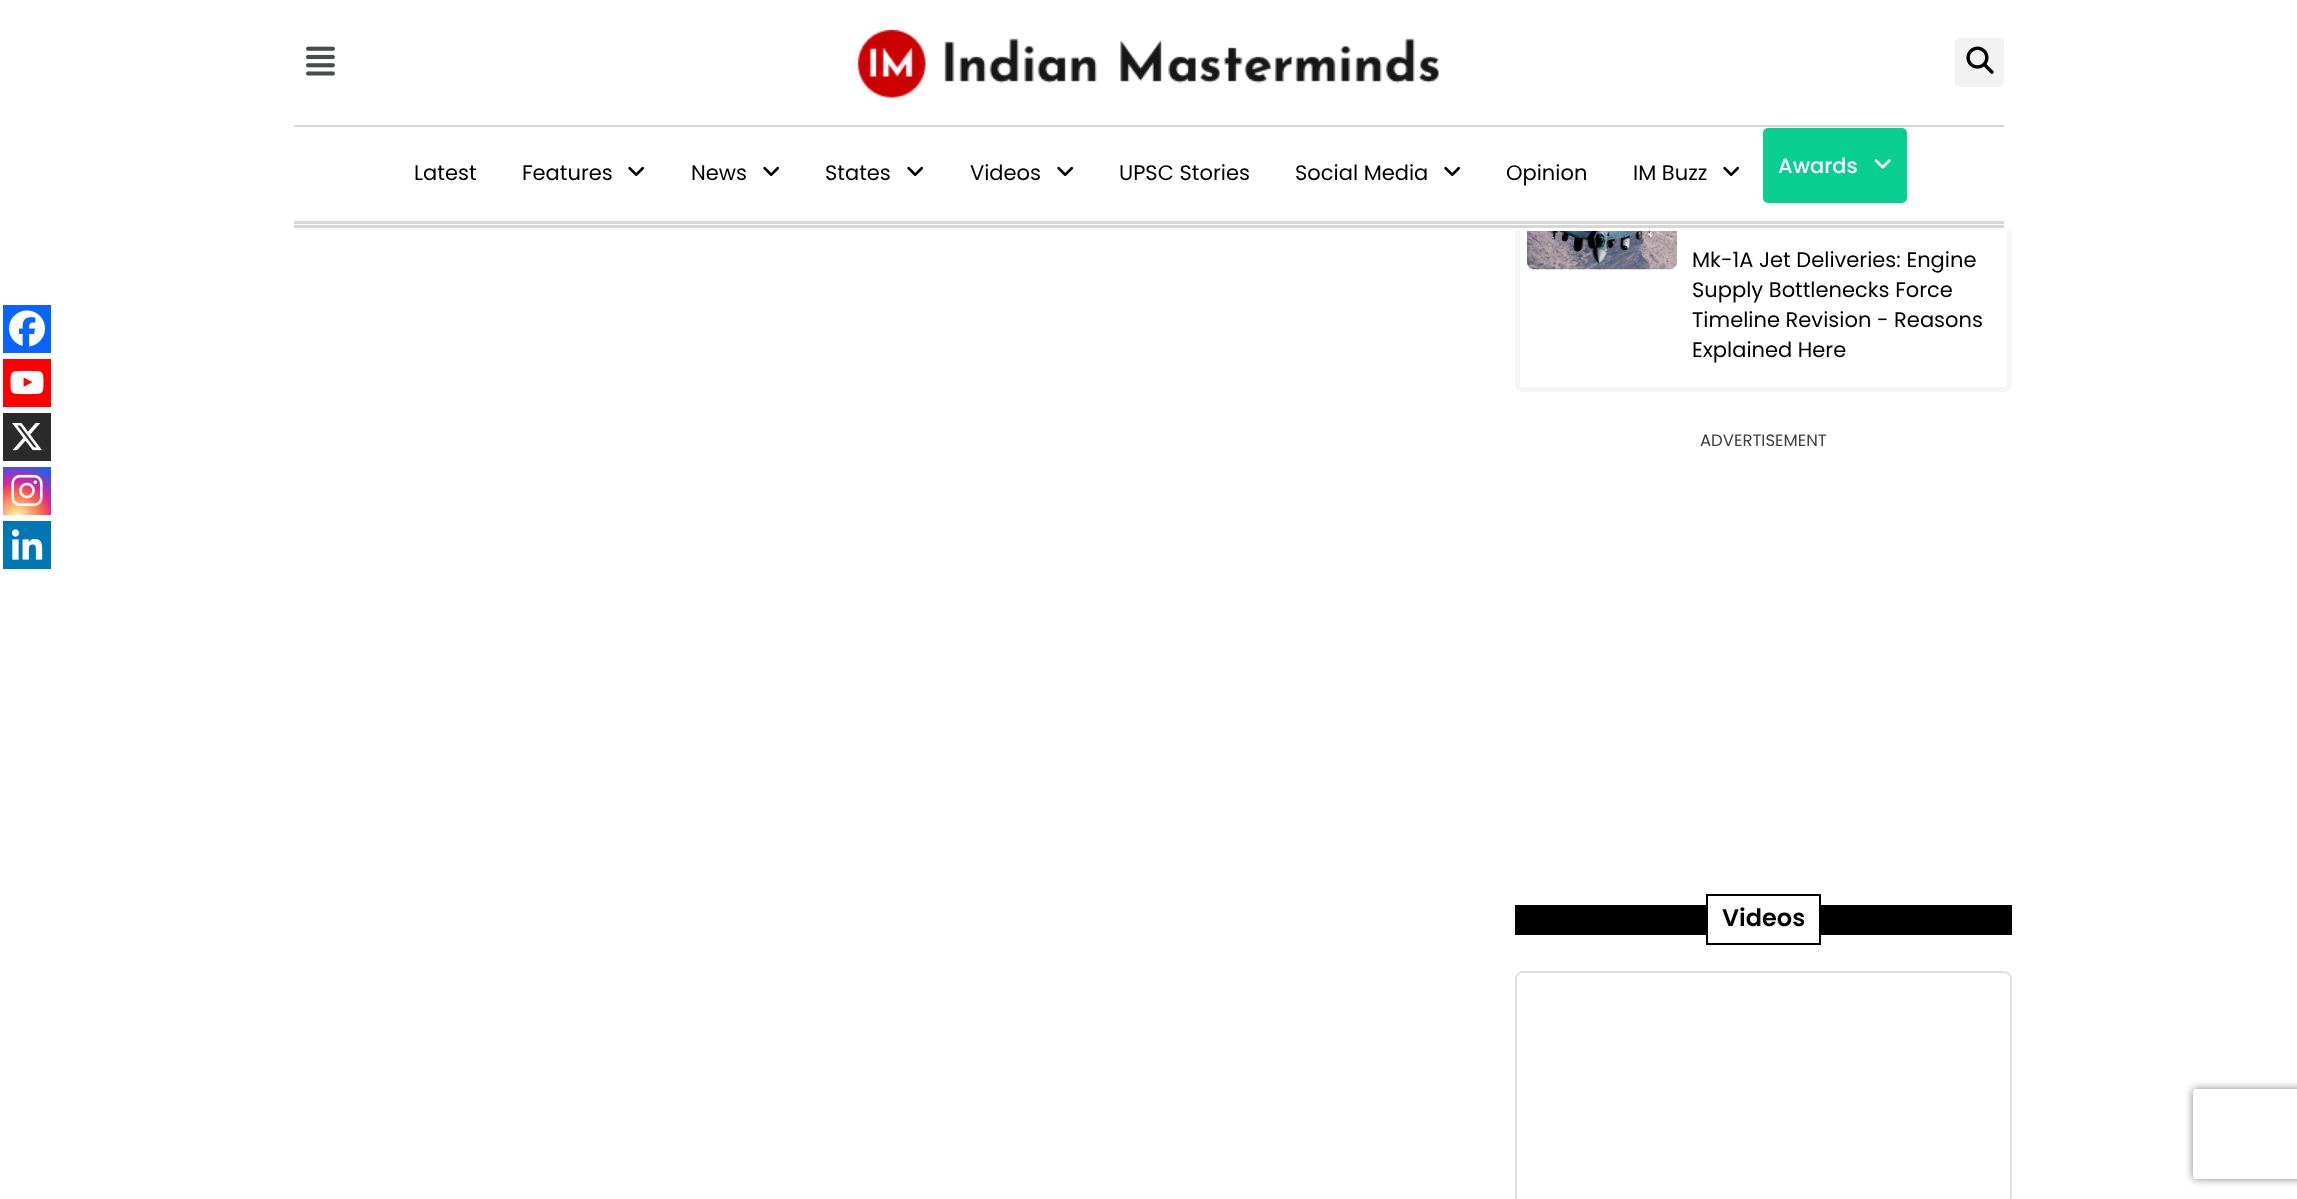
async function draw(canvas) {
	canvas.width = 2297;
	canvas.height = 1199;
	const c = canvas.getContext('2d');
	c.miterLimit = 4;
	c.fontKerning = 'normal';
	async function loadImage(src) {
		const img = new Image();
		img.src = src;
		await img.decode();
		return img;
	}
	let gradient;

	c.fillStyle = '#fff';
	c.fillRect(0, 0, 2297, 1199);
	c.beginPath();
	c.roundRect(1517.5, 169.5, 492, 220, 5.5);
	c.strokeStyle = '#f5f5f5';
	c.lineWidth = 5;
	c.stroke();
	c.fillRect(1515, 167, 497, 64);
	c.drawImage(await loadImage('img1.png'), 306, 46, 29, 30);
	c.drawImage(await loadImage('img2.png'), 857, 30, 582, 68);
	c.fillStyle = '#f2f2f2';
	c.beginPath();
	c.roundRect(1955, 38, 49, 49, 5);
	c.fill();
	c.drawImage(await loadImage('img3.png'), 1966, 46, 28, 28);
	c.fillStyle = '#d6d6d6';
	c.fillRect(294, 125, 1710, 2);
	c.font = '21px Poppins';
	c.fillStyle = '#000';
	c.fillText('Latest', 414, 180);
	c.fillText('Features', 522, 180);
	c.drawImage(await loadImage('img4.png'), 628, 166, 16, 10);
	c.fillText('News', 691, 180);
	c.drawImage(await loadImage('img4.png'), 763, 166, 16, 10);
	c.fillText('States', 825, 180);
	c.drawImage(await loadImage('img4.png'), 907, 166, 16, 10);
	c.fillText('Videos', 970, 180);
	c.drawImage(await loadImage('img4.png'), 1057, 166, 16, 10);
	c.fillText('UPSC Stories', 1119, 180);
	c.fillText('Social Media', 1295, 180);
	c.drawImage(await loadImage('img4.png'), 1444, 166, 16, 10);
	c.fillText('Opinion', 1506, 180);
	c.fillText('IM Buzz', 1633, 180);
	c.drawImage(await loadImage('img4.png'), 1723, 166, 16, 10);
	c.fillStyle = '#0bcf91';
	c.beginPath();
	c.roundRect(1763, 128, 144, 75, 5);
	c.fill();
	c.font = '500 21px Poppins';
	c.fillStyle = '#fff';
	c.fillText('Awards', 1778, 173);
	c.drawImage(await loadImage('img5.png'), 1874, 159, 17, 10);
	for (const [x, y, w, h, color] of [
		[294, 221, 1710, 3, '#d6d6d6'],
		[294, 225, 1710, 3, '#d6d6d6'],
		[3, 305, 48, 48, '#0765fe'],
	]) {
		c.fillStyle = color;
		c.fillRect(x, y, w, h);
	}
	c.drawImage(await loadImage('img6.png'), 9, 310, 36, 37);
	c.fillStyle = '#f00';
	c.fillRect(3, 359, 48, 48);
	c.drawImage(await loadImage('img7.png'), 10, 370, 34, 25);
	c.fillStyle = '#2a2a2a';
	c.fillRect(3, 413, 48, 48);
	c.drawImage(await loadImage('img8.png'), 12, 423, 30, 28);
	gradient = c.createRadialGradient(17, 518, 0, 17, 518, 61);
	gradient.addColorStop(0, '#fdf497');
	gradient.addColorStop(0.05, '#fdf497');
	gradient.addColorStop(0.45, '#fd5949');
	gradient.addColorStop(0.6, '#d6249f');
	gradient.addColorStop(0.9, '#285aeb');
	c.fillStyle = gradient;
	c.fillRect(3, 467, 48, 48);
	c.drawImage(await loadImage('img9.png'), 11, 474, 32, 33);
	c.fillStyle = '#0077b5';
	c.fillRect(3, 521, 48, 48);
	c.drawImage(await loadImage('img10.png'), 11, 529, 32, 31);
	c.drawImage(await loadImage('img11.png'), 1527, 231, 150, 39);
	c.font = '21px Poppins';
	c.fillStyle = '#000';
	for (const [text, x, y] of [
		['Mk-1A Jet Deliveries: Engine', 1692, 267],
		['Supply Bottlenecks Force', 1692, 297],
		['Timeline Revision - Reasons', 1692, 327],
		['Explained Here', 1692, 357],
	]) {
		c.fillText(text, x, y);
	}
	c.font = '16.5px Poppins';
	c.fillStyle = '#404040';
	c.fillText('ADVERTISEMENT', 1700, 446);
	c.fillStyle = '#000';
	c.fillRect(1515, 905, 497, 30);
	c.fillStyle = '#fff';
	c.fillRect(1708, 905, 111, 30);
	c.strokeStyle = '#000';
	c.lineWidth = 2;
	c.strokeRect(1707, 895, 113, 49);
	c.font = '600 24px Poppins';
	c.fillStyle = '#000';
	c.fillText('Videos', 1722, 926);
	c.beginPath();
	c.roundRect(1516, 972, 495, 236, 7);
	c.strokeStyle = '#dfdfdf';
	c.stroke();
	c.save();
	c.beginPath();
	c.moveTo(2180, 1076);
	c.lineTo(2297, 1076);
	c.lineTo(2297, 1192);
	c.lineTo(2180, 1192);
	c.closePath();
	c.moveTo(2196, 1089);
	c.lineTo(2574, 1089);
	c.bezierCurveTo(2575.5, 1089, 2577, 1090.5, 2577, 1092);
	c.lineTo(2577, 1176);
	c.bezierCurveTo(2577, 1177.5, 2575.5, 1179, 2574, 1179);
	c.lineTo(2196, 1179);
	c.bezierCurveTo(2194.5, 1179, 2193, 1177.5, 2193, 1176);
	c.lineTo(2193, 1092);
	c.bezierCurveTo(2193, 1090.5, 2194.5, 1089, 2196, 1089);
	c.closePath();
	c.clip('evenodd');
	c.fillStyle = '#808080';
	c.filter = 'blur(4px)';
	c.beginPath();
	c.roundRect(2193, 1089, 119, 90, 3);
	c.fill();
	c.filter = 'none';
	c.restore();
}

draw(document.querySelector('canvas'));
